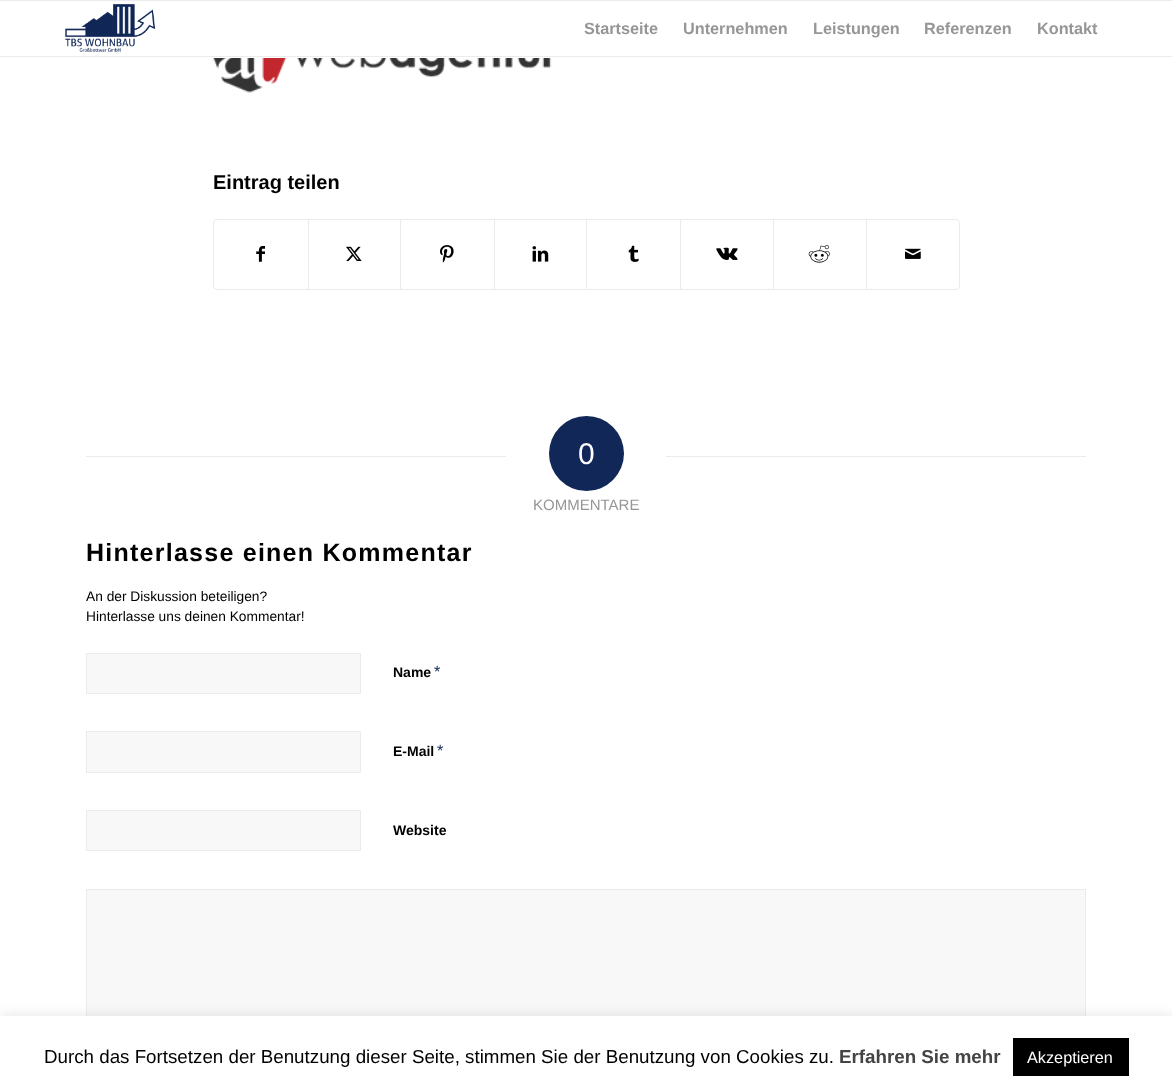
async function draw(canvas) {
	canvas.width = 1172;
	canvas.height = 1091;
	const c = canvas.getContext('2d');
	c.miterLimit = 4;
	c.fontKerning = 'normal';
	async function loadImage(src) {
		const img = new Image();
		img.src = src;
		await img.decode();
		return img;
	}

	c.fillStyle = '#fff';
	c.fillRect(0, 0, 1172, 1091);
	c.fillStyle = '#ebebeb';
	c.fillRect(0, 0, 1172, 1);
	c.fillRect(0, 56, 1172, 1);
	c.drawImage(await loadImage('img1.png'), 65, 4, 91, 48);
	c.font = 'bold 16.25px Liberation Sans';
	c.fillStyle = '#969696';
	for (const [text, x, y] of [
		['Startseite', 584, 34],
		['Unternehmen', 683, 34],
		['Leistungen', 813, 34],
		['Referenzen', 924, 34],
		['Kontakt', 1037, 34],
	]) {
		c.fillText(text, x, y);
	}
	c.drawImage(await loadImage('img2.png'), 212, 58, 340, 35);
	c.font = 'bold 20px Liberation Sans';
	c.fillStyle = '#000';
	c.fillText('Eintrag teilen', 213, 189);
	c.beginPath();
	c.roundRect(213.5, 219.5, 746, 70, 3.5);
	c.strokeStyle = '#ebebeb';
	c.stroke();
	c.drawImage(await loadImage('img3.png'), 256, 246, 9, 16);
	c.fillStyle = '#ebebeb';
	c.fillRect(308, 220, 1, 69);
	c.drawImage(await loadImage('img4.png'), 346, 246, 16, 15);
	c.fillRect(400, 220, 1, 69);
	c.drawImage(await loadImage('img5.png'), 440, 245, 14, 18);
	c.fillRect(494, 220, 1, 69);
	c.drawImage(await loadImage('img6.png'), 532, 246, 17, 16);
	c.fillRect(586, 220, 1, 69);
	c.drawImage(await loadImage('img7.png'), 628, 245, 11, 17);
	c.fillRect(680, 220, 1, 69);
	c.drawImage(await loadImage('img8.png'), 716, 247, 22, 13);
	c.fillRect(773, 220, 1, 69);
	c.drawImage(await loadImage('img9.png'), 808, 245, 22, 18);
	c.fillRect(866, 220, 1, 69);
	c.drawImage(await loadImage('img10.png'), 905, 248, 16, 11);
	c.fillRect(86, 456, 420, 1);
	c.fillStyle = '#102757';
	c.beginPath();
	c.arc(586.5, 453.5, 37.5, 0, 2 * Math.PI);
	c.fill();
	c.font = '30px Liberation Sans';
	c.fillStyle = '#fff';
	c.fillText('0', 578, 464);
	c.fillStyle = '#ebebeb';
	c.fillRect(666, 456, 420, 1);
	c.font = '15px Liberation Sans';
	c.fillStyle = '#969696';
	c.fillText('KOMMENTARE', 533, 510);
	c.letterSpacing = '1.25px';
	c.font = 'bold 25px Liberation Sans';
	c.fillStyle = '#000';
	c.fillText('Hinterlasse einen Kommentar', 86, 561);
	c.letterSpacing = '0px';
	c.font = '13.75px Liberation Sans';
	c.fillText('An der Diskussion beteiligen?', 86, 601);
	c.fillText('Hinterlasse uns deinen Kommentar!', 86, 621);
	c.fillStyle = '#f8f8f8';
	c.beginPath();
	c.rect(86.5, 653.5, 274, 40);
	c.fill();
	c.stroke();
	c.font = 'bold 14px Liberation Sans';
	c.fillStyle = '#000';
	c.fillText('Name', 393, 677);
	c.font = '16.25px Liberation Sans';
	c.fillStyle = '#102757';
	c.fillText('*', 434, 677);
	c.fillStyle = '#f8f8f8';
	c.beginPath();
	c.rect(86.5, 731.5, 274, 41);
	c.fill();
	c.stroke();
	c.font = 'bold 14px Liberation Sans';
	c.fillStyle = '#000';
	c.fillText('E-Mail', 393, 756);
	c.font = '16.25px Liberation Sans';
	c.fillStyle = '#102757';
	c.fillText('*', 437, 756);
	c.fillStyle = '#f8f8f8';
	c.beginPath();
	c.rect(86.5, 810.5, 274, 40);
	c.fill();
	c.stroke();
	c.font = 'bold 14px Liberation Sans';
	c.fillStyle = '#000';
	c.fillText('Website', 393, 835);
	c.fillStyle = '#f8f8f8';
	c.fillRect(87, 890, 998, 126);
	c.strokeRect(86.5, 889.5, 999, 186);
	c.fillStyle = '#acabab4d';
	c.filter = 'blur(6px)';
	c.beginPath();
	c.rect(0, 1015, 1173, 75);
	c.fill();
	c.filter = 'none';
	c.fillStyle = '#fff';
	c.fillRect(0, 1016, 1172, 75);
	c.font = '18.75px Liberation Sans';
	c.fillStyle = '#000';
	c.fillText('Durch das Fortsetzen der Benutzung dieser Seite, stimmen Sie der Benutzung von Cookies zu.', 44, 1063);
	c.font = 'bold 18.75px Liberation Sans';
	c.fillStyle = '#444';
	c.fillText('Erfahren Sie mehr', 839, 1063);
	c.fillStyle = '#000';
	c.fillRect(1013, 1038, 116, 38);
	c.font = '16.25px Liberation Sans';
	c.fillStyle = '#fff';
	c.fillText('Akzeptieren', 1027, 1063);
}

draw(document.querySelector('canvas'));
